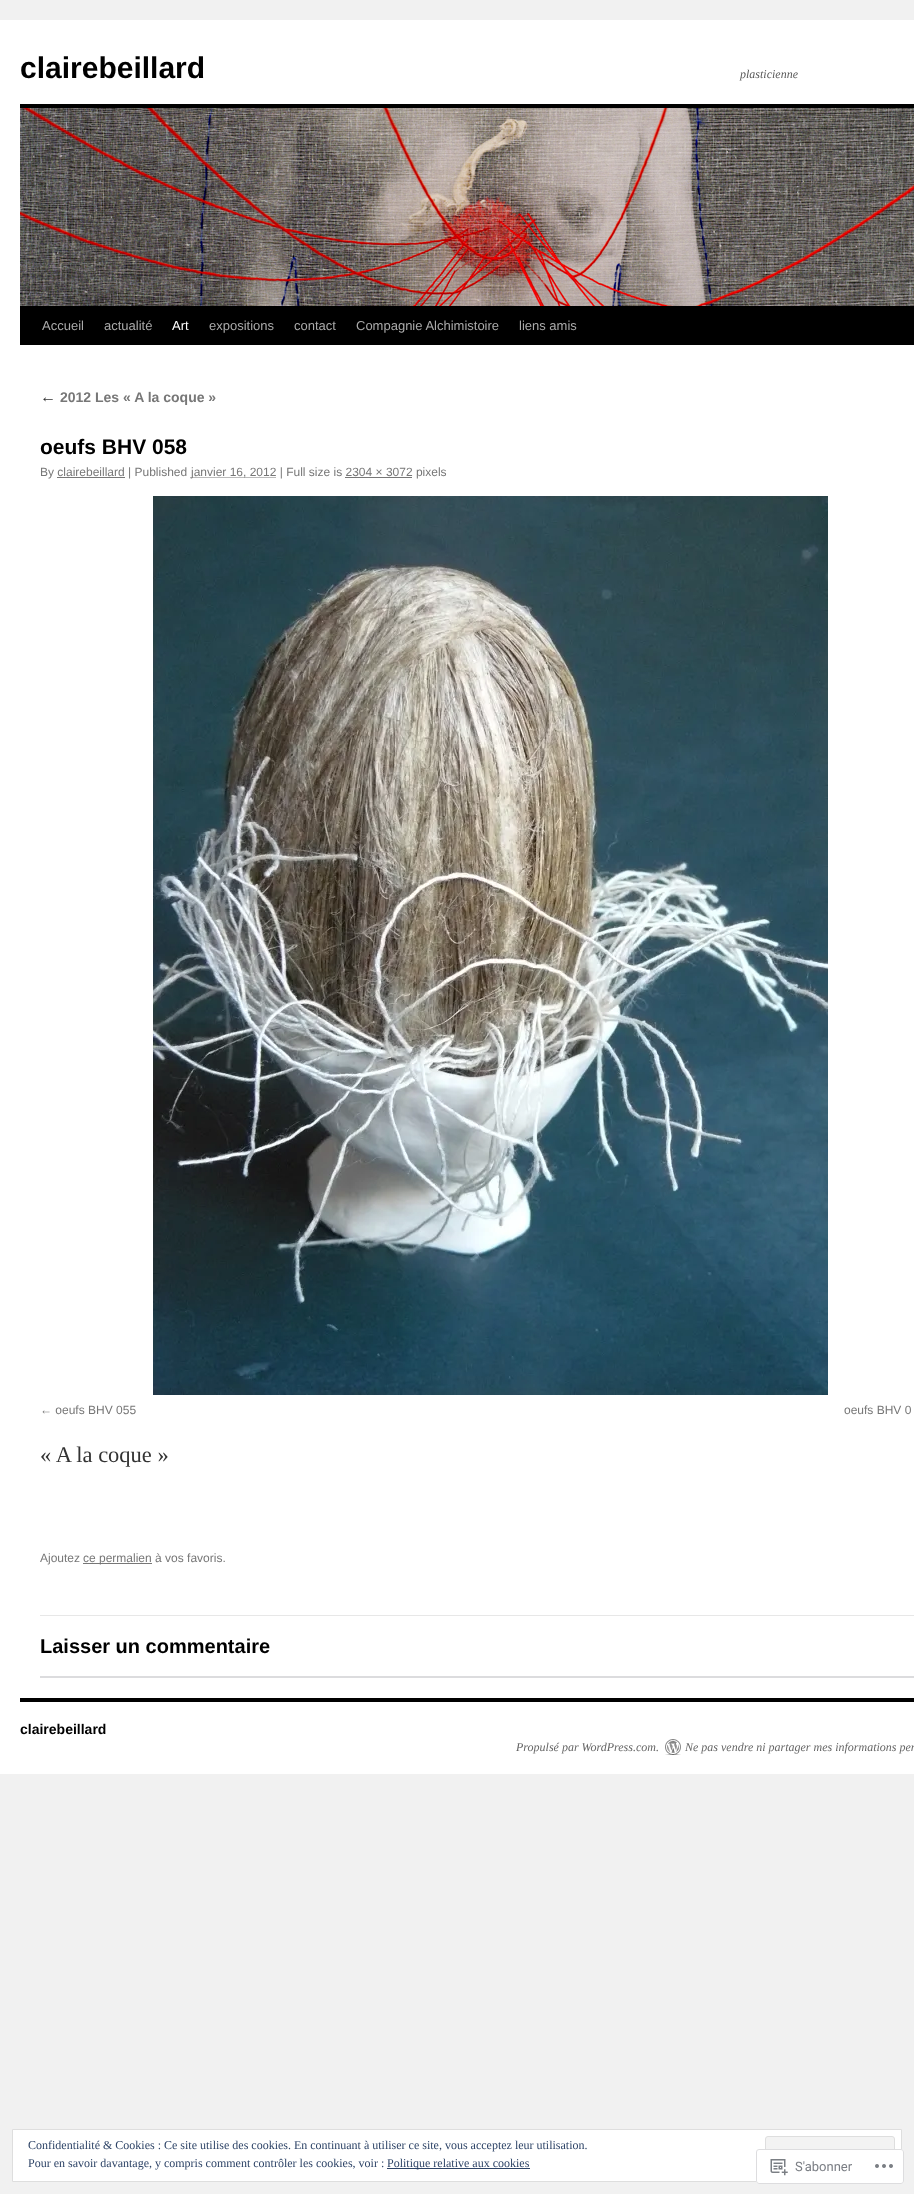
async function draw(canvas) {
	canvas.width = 914;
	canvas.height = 2194;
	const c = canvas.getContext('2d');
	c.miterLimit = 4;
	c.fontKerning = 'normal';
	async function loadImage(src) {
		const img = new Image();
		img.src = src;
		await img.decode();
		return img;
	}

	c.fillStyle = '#f1f1f1';
	c.fillRect(0, 0, 914, 2194);
	c.fillStyle = '#fff';
	c.fillRect(0, 20, 914, 1754);
	c.font = 'bold 30px Liberation Sans';
	c.fillStyle = '#000';
	c.fillText('clairebeillard', 20, 78);
	c.font = 'italic 12px Liberation Serif';
	c.fillStyle = '#595959';
	c.fillText('plasticienne', 740, 78);
	c.fillStyle = '#000';
	c.fillRect(20, 104, 894, 4);
	c.fillRect(20, 306, 894, 39);
	c.drawImage(await loadImage('img1.png'), 20, 108, 894, 198);
	c.font = '13px Liberation Sans';
	c.fillStyle = '#aaa';
	c.fillText('Accueil', 42, 330);
	c.fillText('actualité', 104, 330);
	c.fillStyle = '#fff';
	c.fillText('Art', 172, 330);
	c.fillStyle = '#aaa';
	for (const [text, x, y] of [
		['expositions', 209, 330],
		['contact', 294, 330],
		['Compagnie Alchimistoire', 356, 330],
		['liens amis', 519, 330],
	]) {
		c.fillText(text, x, y);
	}
	c.font = 'italic 16px Liberation Serif';
	c.fillStyle = '#333';
	c.fillText('←', 40, 402);
	c.font = 'bold 14px Liberation Sans';
	c.fillStyle = '#777';
	c.fillText('2012 Les « A la coque »', 60, 402);
	c.font = 'bold 21px Liberation Sans';
	c.fillStyle = '#000';
	c.fillText('oeufs BHV 058', 40, 454);
	c.font = '12px Liberation Sans';
	c.fillStyle = '#777';
	c.fillText('By clairebeillard | Published', 40, 476);
	c.beginPath();
	c.moveTo(190.5, 477.5);
	c.lineTo(276, 477.5);
	c.strokeStyle = '#777';
	c.setLineDash([1, 1]);
	c.stroke();
	c.fillText('janvier 16, 2012 | Full size is 2304 × 3072 pixels', 191, 476);
	c.fillRect(57, 477, 68, 1);
	c.fillRect(345, 477, 67, 1);
	c.drawImage(await loadImage('img2.png'), 153, 496, 675, 899);
	c.fillText('← oeufs BHV 055', 40, 1414);
	c.fillText('oeufs BHV 0', 844, 1414);
	c.font = '22.5px Liberation Serif';
	c.fillStyle = '#333';
	c.fillText('« A la coque »', 40, 1462);
	c.font = '12px Liberation Sans';
	c.fillStyle = '#777';
	c.fillText('Ajoutez', 40, 1562);
	c.fillRect(83, 1563, 69, 1);
	c.fillText('ce permalien à vos favoris.', 83, 1562);
	c.fillStyle = '#e7e7e7';
	c.fillRect(40, 1615, 874, 1);
	c.font = 'bold 20px Liberation Sans';
	c.fillStyle = '#000';
	c.fillText('Laisser un commentaire', 40, 1653);
	c.fillStyle = '#dcdcde';
	c.fillRect(40, 1676, 874, 2);
	c.fillStyle = '#000';
	c.fillRect(20, 1698, 894, 4);
	c.font = 'bold 14px Liberation Sans';
	c.fillText('clairebeillard', 20, 1734);
	c.font = 'italic 12px Liberation Serif';
	c.fillStyle = '#666';
	c.fillText('Propulsé par WordPress.com.', 516, 1751);
	c.drawImage(await loadImage('img3.png'), 665, 1739, 16, 16);
	c.fillText('Ne pas vendre ni partager mes informations per', 685, 1751);
	c.fillStyle = '#fff';
	c.beginPath();
	c.rect(12.5, 2129.5, 889, 52);
	c.fill();
	c.strokeStyle = '#dedede';
	c.setLineDash([]);
	c.stroke();
	c.font = '12px Liberation Serif';
	c.fillStyle = '#2e4467';
	c.fillText('Confidentialité & Cookies : Ce site utilise des cookies. En continuant à utiliser ce site, vous acceptez leur utilisation.', 28, 2149);
	c.fillStyle = '#f3f3f3';
	c.beginPath();
	c.roundRect(765.5, 2136.5, 129, 38, 2.5);
	c.fill();
	c.stroke();
	c.fillStyle = '#2e4467';
	c.fillText('Pour en savoir davantage, y compris comment contrôler les cookies, voir :', 28, 2167);
	c.fillRect(387, 2168, 143, 1);
	c.fillText('Politique relative aux cookies', 387, 2167);
	c.fillStyle = '#fffffffa';
	c.beginPath();
	c.roundRect(756, 2149, 148, 35, 3);
	c.fill();
	c.beginPath();
	c.roundRect(756.5, 2149.5, 147, 34, 2.5);
	c.strokeStyle = '#dcdcdefa';
	c.stroke();
	c.drawImage(await loadImage('img4.png'), 770, 2159, 18, 17);
	c.font = '13px Roboto';
	c.fillStyle = '#7a7e84';
	c.fillText('S\'abonner', 795, 2171);
	c.drawImage(await loadImage('img5.png'), 875, 2164, 18, 4);
}

draw(document.querySelector('canvas'));
